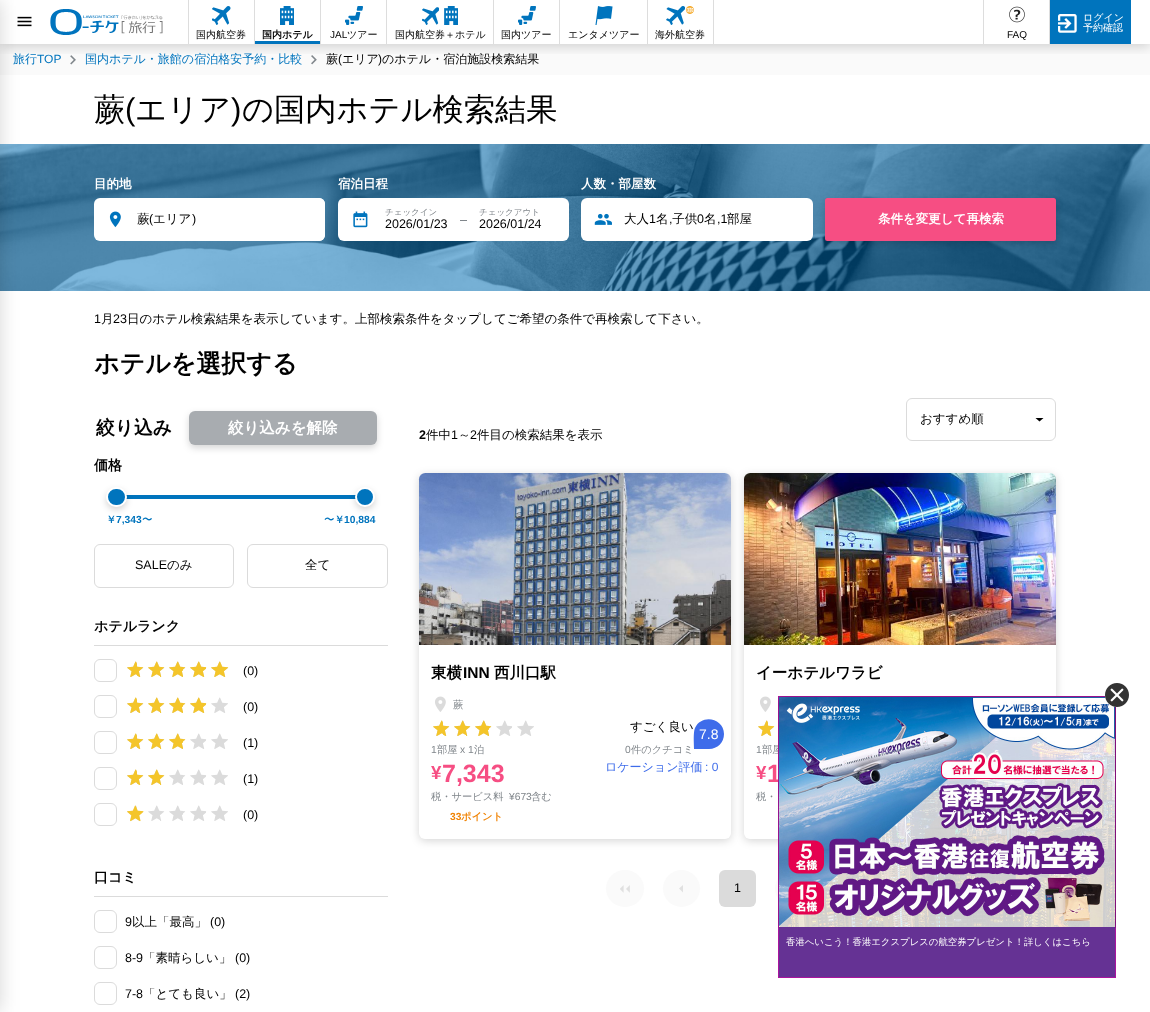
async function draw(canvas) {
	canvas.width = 1150;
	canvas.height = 1012;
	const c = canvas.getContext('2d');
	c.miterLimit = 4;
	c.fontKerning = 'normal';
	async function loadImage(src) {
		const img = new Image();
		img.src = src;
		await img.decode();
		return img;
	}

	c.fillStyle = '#fff';
	c.fillRect(0, 0, 1150, 1012);
	c.fillStyle = '#fafafa';
	c.fillRect(0, 44, 1150, 31);
	c.drawImage(await loadImage('img11.png'), 70, 55, 6, 10);
	c.drawImage(await loadImage('img12.png'), 311, 55, 6, 10);
	c.save();
	c.beginPath();
	c.rect(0, 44, 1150, 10);
	c.clip();
	c.fillStyle = '#00000029';
	c.filter = 'blur(6px)';
	c.beginPath();
	c.rect(0, 3, 1150, 44);
	c.fill();
	c.filter = 'none';
	c.restore();
	c.drawImage(await loadImage('img1.png'), 17, 16, 15, 11);
	c.drawImage(await loadImage('img13.png'), 0, 144, 1150, 147);
	c.fillStyle = '#00000029';
	c.filter = 'blur(9.5px)';
	c.beginPath();
	c.rect(-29, 0, 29, 1012);
	c.fill();
	c.filter = 'none';
	c.drawImage(await loadImage('img2.png'), 50, 9, 113, 26);
	c.fillStyle = '#ddd';
	c.fillRect(254, 0, 1, 44);
	c.fillRect(188, 0, 1, 44);
	c.drawImage(await loadImage('img3.png'), 212, 6, 19, 19);
	c.font = '500 10px WenQuanYi Zen Hei';
	c.fillStyle = '#000';
	c.fillText('国内航空券', 196, 38);
	c.fillStyle = '#ddd';
	c.fillRect(320, 0, 1, 44);
	c.drawImage(await loadImage('img4.png'), 280, 6, 14, 19);
	c.font = 'bold 10px WenQuanYi Zen Hei';
	c.fillStyle = '#000';
	c.fillText('国内ホテル', 262, 38);
	c.fillStyle = '#0074bd';
	c.fillRect(255, 41, 65, 3);
	c.fillStyle = '#ddd';
	c.fillRect(386, 0, 1, 44);
	c.drawImage(await loadImage('img5.png'), 345, 6, 18, 19);
	c.font = '10px Liberation Sans';
	c.fillStyle = '#000';
	c.fillText('JAL', 330, 38);
	c.font = '500 10px WenQuanYi Zen Hei';
	c.fillText('ツアー', 347, 38);
	c.fillStyle = '#ddd';
	c.fillRect(493, 0, 1, 44);
	c.drawImage(await loadImage('img6.png'), 422, 6, 36, 19);
	c.fillStyle = '#000';
	c.fillText('国内航空券＋ホテル', 395, 38);
	c.fillStyle = '#ddd';
	c.fillRect(559, 0, 1, 44);
	c.drawImage(await loadImage('img5.png'), 518, 6, 18, 19);
	c.fillStyle = '#000';
	c.fillText('国内ツアー', 501, 38);
	c.fillStyle = '#ddd';
	c.fillRect(647, 0, 1, 44);
	c.drawImage(await loadImage('img7.png'), 595, 6, 18, 19);
	c.fillStyle = '#000';
	c.fillText('エンタメツアー', 568, 38);
	c.fillStyle = '#ddd';
	c.fillRect(713, 0, 1, 44);
	c.drawImage(await loadImage('img8.png'), 666, 6, 28, 19);
	c.fillStyle = '#000';
	c.fillText('海外航空券', 655, 38);
	c.fillStyle = '#0074bd';
	c.fillRect(1050, 0, 81, 44);
	c.drawImage(await loadImage('img9.png'), 1058, 14, 19, 19);
	c.fillStyle = '#fff';
	c.fillText('ログイン', 1083, 21);
	c.fillText('予約確認', 1083, 31);
	c.fillStyle = '#ddd';
	c.fillRect(1049, 0, 1, 44);
	c.fillRect(983, 0, 1, 44);
	c.drawImage(await loadImage('img10.png'), 1009, 6, 16, 17);
	c.font = '10px Liberation Sans';
	c.fillStyle = '#000';
	c.fillText('FAQ', 1007, 38);
	c.font = '500 12px WenQuanYi Zen Hei';
	c.fillStyle = '#0074bd';
	c.fillText('旅行', 13, 63);
	c.font = '12px Liberation Sans';
	c.fillText('TOP', 37, 63);
	c.font = '500 12px WenQuanYi Zen Hei';
	c.fillText('国内ホテル・旅館の宿泊格安予約・比較', 85, 63);
	c.fillStyle = '#000';
	c.fillText('蕨', 326, 63);
	c.font = '12px Liberation Sans';
	c.fillText('(', 338, 63);
	c.font = '500 12px WenQuanYi Zen Hei';
	c.fillText('エリア', 342, 63);
	c.font = '12px Liberation Sans';
	c.fillText(')', 378, 63);
	c.font = '500 12px WenQuanYi Zen Hei';
	c.fillText('のホテル・宿泊施設検索結果', 382, 63);
	c.font = '500 31.25px WenQuanYi Zen Hei';
	c.fillText('蕨', 94, 120);
	c.font = '31.25px Liberation Sans';
	c.fillText('(', 125, 120);
	c.font = '500 31.25px WenQuanYi Zen Hei';
	c.fillText('エリア', 135, 120);
	c.font = '31.25px Liberation Sans';
	c.fillText(')', 231, 120);
	c.font = '500 31.25px WenQuanYi Zen Hei';
	c.fillText('の国内ホテル検索結果', 242, 120);
	c.font = 'bold 12.5px WenQuanYi Zen Hei';
	c.fillStyle = '#fff';
	c.fillText('目的地', 94, 188);
	c.beginPath();
	c.roundRect(94, 198, 231, 43, 6);
	c.fill();
	c.drawImage(await loadImage('img14.png'), 109, 211, 12, 17);
	c.beginPath();
	c.roundRect(137, 198, 188, 43, 6);
	c.fill();
	c.font = '500 12.5px WenQuanYi Zen Hei';
	c.fillStyle = '#000';
	c.fillText('蕨', 137, 223);
	c.font = '12.5px Liberation Sans';
	c.fillText('(', 149, 223);
	c.font = '500 12.5px WenQuanYi Zen Hei';
	c.fillText('エリア', 153, 223);
	c.font = '12.5px Liberation Sans';
	c.fillText(')', 192, 223);
	c.font = 'bold 12.5px WenQuanYi Zen Hei';
	c.fillStyle = '#fff';
	c.fillText('宿泊日程', 338, 188);
	c.beginPath();
	c.roundRect(338, 198, 231, 43, 6);
	c.fill();
	c.drawImage(await loadImage('img15.png'), 353, 211, 15, 17);
	c.font = '500 8.5px WenQuanYi Zen Hei';
	c.fillStyle = '#80868b';
	c.fillText('チェックイン', 385, 215);
	c.font = '12.5px Liberation Sans';
	c.fillStyle = '#000';
	c.fillText('2026/01/23', 385, 228);
	c.fillStyle = '#80868b';
	c.fillRect(460, 220, 7, 1);
	c.font = '500 8.5px WenQuanYi Zen Hei';
	c.fillText('チェックアウト', 479, 215);
	c.font = '12.5px Liberation Sans';
	c.fillStyle = '#000';
	c.fillText('2026/01/24', 479, 228);
	c.font = 'bold 12.5px WenQuanYi Zen Hei';
	c.fillStyle = '#fff';
	c.fillText('人数・部屋数', 581, 188);
	c.beginPath();
	c.roundRect(581, 198, 232, 43, 6);
	c.fill();
	c.drawImage(await loadImage('img16.png'), 594, 213, 18, 12);
	c.font = '500 12.5px WenQuanYi Zen Hei';
	c.fillStyle = '#000';
	c.fillText('大人', 624, 223);
	c.font = '12.5px Liberation Sans';
	c.fillText('1', 649, 223);
	c.font = '500 12.5px WenQuanYi Zen Hei';
	c.fillText('名 子供', 656, 223);
	c.font = '12.5px Liberation Sans';
	c.fillText('0', 697, 223);
	c.font = '500 12.5px WenQuanYi Zen Hei';
	c.fillText('名', 704, 223);
	c.font = '12.5px Liberation Sans';
	c.fillText(',1', 717, 223);
	c.font = '500 12.5px WenQuanYi Zen Hei';
	c.fillText('部屋', 727, 223);
	c.font = '12.5px Liberation Sans';
	c.fillText(',', 669, 223);
	c.fillStyle = '#00000029';
	c.filter = 'blur(3.5px)';
	c.beginPath();
	c.roundRect(825, 201, 231, 43, 2.5);
	c.fill();
	c.filter = 'none';
	c.fillStyle = '#f64e83';
	c.beginPath();
	c.roundRect(825, 198, 231, 43, 2.5);
	c.fill();
	c.font = 'bold 12.5px WenQuanYi Zen Hei';
	c.fillStyle = '#fff';
	c.fillText('条件を変更して再検索', 878, 223);
	c.font = '12.5px Liberation Sans';
	c.fillStyle = '#000';
	c.fillText('1', 94, 323);
	c.font = '500 12.5px WenQuanYi Zen Hei';
	c.fillText('月', 101, 323);
	c.font = '12.5px Liberation Sans';
	c.fillText('23', 113, 323);
	c.font = '500 12.5px WenQuanYi Zen Hei';
	c.fillText('日のホテル検索結果を表示しています。上部検索条件をタップしてご希望の条件で再検索して下さい。', 127, 323);
	c.font = 'bold 25px WenQuanYi Zen Hei';
	c.fillText('ホテルを選択する', 94, 372);
	c.font = 'bold 18.75px WenQuanYi Zen Hei';
	c.fillText('絞り込み', 96, 434);
	c.fillStyle = '#00000029';
	c.filter = 'blur(3.5px)';
	c.beginPath();
	c.roundRect(189, 414, 188, 34, 6);
	c.fill();
	c.filter = 'none';
	c.fillStyle = '#a8acb0';
	c.beginPath();
	c.roundRect(189, 411, 188, 34, 6);
	c.fill();
	c.font = 'bold 15.5px WenQuanYi Zen Hei';
	c.fillStyle = '#fff';
	c.fillText('絞り込みを解除', 228, 433);
	c.font = 'bold 14px WenQuanYi Zen Hei';
	c.fillStyle = '#000';
	c.fillText('価格', 94, 470);
	c.fillStyle = '#0074bd';
	c.fillRect(126, 495, 230, 4);
	c.fillStyle = '#00000029';
	c.filter = 'blur(3px)';
	c.beginPath();
	c.roundRect(106, 490, 21, 20, 10);
	c.fill();
	c.filter = 'none';
	c.fillStyle = '#0074bd';
	c.beginPath();
	c.roundRect(107, 488, 19, 18, 9);
	c.fill();
	c.strokeStyle = '#fff';
	c.lineWidth = 2;
	c.stroke();
	c.fillStyle = '#00000029';
	c.filter = 'blur(3px)';
	c.beginPath();
	c.roundRect(355, 490, 20, 20, 10);
	c.fill();
	c.filter = 'none';
	c.fillStyle = '#0074bd';
	c.beginPath();
	c.arc(365, 497, 9, 0, 2 * Math.PI);
	c.fill();
	c.stroke();
	c.font = 'bold 10.25px WenQuanYi Zen Hei';
	c.fillText('￥', 106, 523);
	c.font = 'bold 10.25px Liberation Sans';
	c.fillText('7,343', 116, 523);
	c.font = 'bold 10.25px WenQuanYi Zen Hei';
	c.fillText('〜', 142, 523);
	c.fillText('〜￥', 324, 523);
	c.font = 'bold 10.25px Liberation Sans';
	c.fillText('10,884', 344, 523);
	c.beginPath();
	c.roundRect(94.5, 544.5, 139, 43, 5.5);
	c.strokeStyle = '#dbdbdb';
	c.lineWidth = 1;
	c.stroke();
	c.font = '12.5px Liberation Sans';
	c.fillStyle = '#000';
	c.fillText('SALE', 135, 569);
	c.font = '500 12.5px WenQuanYi Zen Hei';
	c.fillText('のみ', 167, 569);
	c.beginPath();
	c.roundRect(247.5, 544.5, 140, 43, 5.5);
	c.stroke();
	c.fillText('全て', 305, 569);
	c.fillStyle = '#dbdbdb';
	c.fillRect(94, 645, 294, 1);
	c.font = 'bold 14px WenQuanYi Zen Hei';
	c.fillStyle = '#000';
	c.fillText('ホテルランク', 94, 631);
	c.beginPath();
	c.roundRect(94.5, 659.5, 22, 22, 5.5);
	c.stroke();
	c.drawImage(await loadImage('img17.png'), 127, 661, 101, 16);
	c.drawImage(await loadImage('img18.png'), 127, 661, 102, 16);
	c.font = '12.5px Liberation Sans';
	c.fillText('(0)', 243, 675);
	c.beginPath();
	c.roundRect(94.5, 695.5, 22, 22, 5.5);
	c.stroke();
	c.drawImage(await loadImage('img17.png'), 127, 697, 101, 16);
	c.drawImage(await loadImage('img19.png'), 127, 697, 80, 16);
	c.fillText('(0)', 243, 711);
	c.beginPath();
	c.roundRect(94.5, 731.5, 22, 22, 5.5);
	c.stroke();
	c.drawImage(await loadImage('img17.png'), 127, 733, 101, 16);
	c.drawImage(await loadImage('img20.png'), 127, 733, 59, 16);
	c.fillText('(1)', 243, 747);
	c.beginPath();
	c.roundRect(94.5, 767.5, 22, 22, 5.5);
	c.stroke();
	c.drawImage(await loadImage('img17.png'), 127, 769, 101, 16);
	c.drawImage(await loadImage('img21.png'), 127, 769, 38, 16);
	c.fillText('(1)', 243, 783);
	c.beginPath();
	c.roundRect(94.5, 803.5, 22, 22, 5.5);
	c.stroke();
	c.drawImage(await loadImage('img17.png'), 127, 805, 101, 16);
	c.drawImage(await loadImage('img22.png'), 127, 805, 17, 17);
	c.fillText('(0)', 243, 819);
	c.fillStyle = '#dbdbdb';
	c.fillRect(94, 896, 294, 1);
	c.font = 'bold 14px WenQuanYi Zen Hei';
	c.fillStyle = '#000';
	c.fillText('口コミ', 94, 882);
	c.beginPath();
	c.roundRect(94.5, 910.5, 22, 22, 5.5);
	c.stroke();
	c.font = '12.5px Liberation Sans';
	c.fillText('9', 125, 926);
	c.font = '500 12.5px WenQuanYi Zen Hei';
	c.fillText('以上「最高」', 132, 926);
	c.font = '12.5px Liberation Sans';
	c.fillText('(0)', 210, 926);
	c.beginPath();
	c.roundRect(94.5, 946.5, 22, 22, 5.5);
	c.stroke();
	c.fillText('8-9', 125, 962);
	c.font = '500 12.5px WenQuanYi Zen Hei';
	c.fillText('「素晴らしい」', 143, 962);
	c.font = '12.5px Liberation Sans';
	c.fillText('(0)', 235, 962);
	c.beginPath();
	c.roundRect(94.5, 982.5, 22, 22, 5.5);
	c.stroke();
	c.fillText('7-8', 125, 998);
	c.font = '500 12.5px WenQuanYi Zen Hei';
	c.fillText('「とても良い」', 143, 998);
	c.font = '12.5px Liberation Sans';
	c.fillText('(2)', 235, 998);
	c.beginPath();
	c.roundRect(906.5, 398.5, 149, 42, 5.5);
	c.stroke();
	c.font = '500 12.5px WenQuanYi Zen Hei';
	c.fillText('おすすめ順', 920, 423);
	c.beginPath();
	c.moveTo(1035.5, 418);
	c.lineTo(1039.5, 421.5);
	c.lineTo(1043.5, 418);
	c.closePath();
	c.fill();
	c.font = 'bold 12.5px Liberation Sans';
	c.fillText('2', 419, 439);
	c.font = '500 12.5px WenQuanYi Zen Hei';
	c.fillText('件中', 426, 439);
	c.font = '12.5px Liberation Sans';
	c.fillText('1', 451, 439);
	c.font = '500 12.5px WenQuanYi Zen Hei';
	c.fillText('～', 458, 439);
	c.font = '12.5px Liberation Sans';
	c.fillText('2', 470, 439);
	c.font = '500 12.5px WenQuanYi Zen Hei';
	c.fillText('件目の検索結果を表示', 477, 439);
	c.fillStyle = '#00000029';
	c.filter = 'blur(4.5px)';
	c.beginPath();
	c.roundRect(419, 475, 312, 366, 6);
	c.fill();
	c.filter = 'none';
	c.fillStyle = '#fff';
	c.beginPath();
	c.roundRect(419, 473, 312, 366, 6);
	c.fill();
	c.drawImage(await loadImage('img23.png'), 418, 473, 313, 172);
	c.font = 'bold 15.5px WenQuanYi Zen Hei';
	c.fillStyle = '#000';
	c.fillText('東横', 431, 678);
	c.font = 'bold 15.5px Liberation Sans';
	c.fillText('INN', 463, 678);
	c.font = 'bold 15.5px WenQuanYi Zen Hei';
	c.fillText('西川口駅', 494, 678);
	c.drawImage(await loadImage('img24.png'), 435, 696, 11, 16);
	c.font = '500 10.25px WenQuanYi Zen Hei';
	c.fillStyle = '#80868b';
	c.fillText('蕨', 453, 708);
	c.drawImage(await loadImage('img17.png'), 433, 720, 101, 16);
	c.drawImage(await loadImage('img20.png'), 433, 720, 59, 16);
	c.font = '500 12.5px WenQuanYi Zen Hei';
	c.fillStyle = '#000';
	c.fillText('すごく良い', 630, 731);
	c.fillStyle = '#3e6cea';
	c.beginPath();
	c.moveTo(724, 734);
	c.bezierCurveTo(724, 718, 701.5, 713.5, 695, 728);
	c.bezierCurveTo(693, 733, 694, 743.5, 694, 749);
	c.lineTo(709, 749);
	c.bezierCurveTo(717.5, 749, 724, 742.5, 724, 734);
	c.closePath();
	c.fill();
	c.font = '14px Liberation Sans';
	c.fillStyle = '#fff';
	c.fillText('7.8', 699, 739);
	c.font = '10.25px Liberation Sans';
	c.fillStyle = '#80868b';
	c.fillText('1', 431, 753);
	c.font = '500 10.25px WenQuanYi Zen Hei';
	c.fillText('部屋', 437, 753);
	c.font = '10.25px Liberation Sans';
	c.fillText('x 1', 460, 753);
	c.font = '500 10.25px WenQuanYi Zen Hei';
	c.fillText('泊', 474, 753);
	c.font = '10.25px Liberation Sans';
	c.fillText('0', 625, 753);
	c.font = '500 10.25px WenQuanYi Zen Hei';
	c.fillText('件のクチコミ', 631, 753);
	c.font = 'bold 18.75px Liberation Sans';
	c.fillStyle = '#f64e83';
	c.fillText('¥', 431, 779);
	c.font = 'bold 25px Liberation Sans';
	c.fillText('7,343', 442, 782);
	c.font = '500 12px WenQuanYi Zen Hei';
	c.fillStyle = '#3e6cea';
	c.fillText('ロケーション評価', 605, 771);
	c.font = '12px Liberation Sans';
	c.fillText(': 0', 705, 771);
	c.font = '500 10.25px WenQuanYi Zen Hei';
	c.fillStyle = '#80868b';
	c.fillText('税・サービス料', 431, 800);
	c.font = '10.25px Liberation Sans';
	c.fillText('¥673', 509, 800);
	c.font = '500 10.25px WenQuanYi Zen Hei';
	c.fillText('含む', 531, 800);
	c.font = 'bold 10.25px Liberation Sans';
	c.fillStyle = '#f08406';
	c.fillText('33', 450, 820);
	c.font = 'bold 10.25px WenQuanYi Zen Hei';
	c.fillText('ポイント', 461, 820);
	c.fillStyle = '#00000029';
	c.filter = 'blur(4.5px)';
	c.beginPath();
	c.roundRect(744, 475, 312, 366, 6);
	c.fill();
	c.filter = 'none';
	c.fillStyle = '#fff';
	c.beginPath();
	c.roundRect(744, 473, 312, 366, 6);
	c.fill();
	c.drawImage(await loadImage('img25.png'), 744, 473, 312, 172);
	c.font = 'bold 15.5px WenQuanYi Zen Hei';
	c.fillStyle = '#000';
	c.fillText('イーホテルワラビ', 756, 678);
	c.drawImage(await loadImage('img24.png'), 760, 696, 11, 16);
	c.drawImage(await loadImage('img26.png'), 758, 720, 17, 16);
	c.drawImage(await loadImage('img27.png'), 758, 720, 17, 16);
	c.font = '10.25px Liberation Sans';
	c.fillStyle = '#80868b';
	c.fillText('1', 756, 753);
	c.font = '500 10.25px WenQuanYi Zen Hei';
	c.fillText('部屋', 762, 753);
	c.font = 'bold 18.75px Liberation Sans';
	c.fillStyle = '#f64e83';
	c.fillText('¥', 756, 779);
	c.font = 'bold 25px Liberation Sans';
	c.fillText('1', 767, 782);
	c.font = '500 10.25px WenQuanYi Zen Hei';
	c.fillStyle = '#80868b';
	c.fillText('税・', 756, 800);
	c.fillStyle = '#fafafa';
	c.beginPath();
	c.roundRect(606, 870, 38, 37, 18.5);
	c.fill();
	c.drawImage(await loadImage('img28.png'), 620, 885, 10, 8);
	c.beginPath();
	c.arc(681.5, 888.5, 18.5, 0, 2 * Math.PI);
	c.fill();
	c.fillStyle = '#e1e1e1';
	c.beginPath();
	c.moveTo(683, 885);
	c.lineTo(679, 888.5);
	c.lineTo(683, 892.5);
	c.closePath();
	c.fill();
	c.fillStyle = '#dbdbdb';
	c.beginPath();
	c.roundRect(719, 870, 37, 37, 6);
	c.fill();
	c.font = '12.5px Liberation Sans';
	c.fillStyle = '#000';
	c.fillText('1', 734, 892);
	c.fillStyle = '#fafafa';
	c.beginPath();
	c.roundRect(775, 870, 38, 37, 18.5);
	c.fill();
	c.strokeStyle = '#ab149e';
	c.strokeRect(778.5, 696.5, 337, 281);
	c.drawImage(await loadImage('img30.png'), 778, 696, 338, 232);
	c.drawImage(await loadImage('img29.png'), 1105, 683, 24, 24);
	c.fillStyle = '#653294';
	c.fillRect(779, 927, 336, 50);
	c.font = '500 9.4px WenQuanYi Zen Hei';
	c.fillStyle = '#fff';
	c.fillText('香港へいこう！香港エクスプレスの航空券プレゼント！詳しくはこちら', 786, 945);
}

draw(document.querySelector('canvas'));
